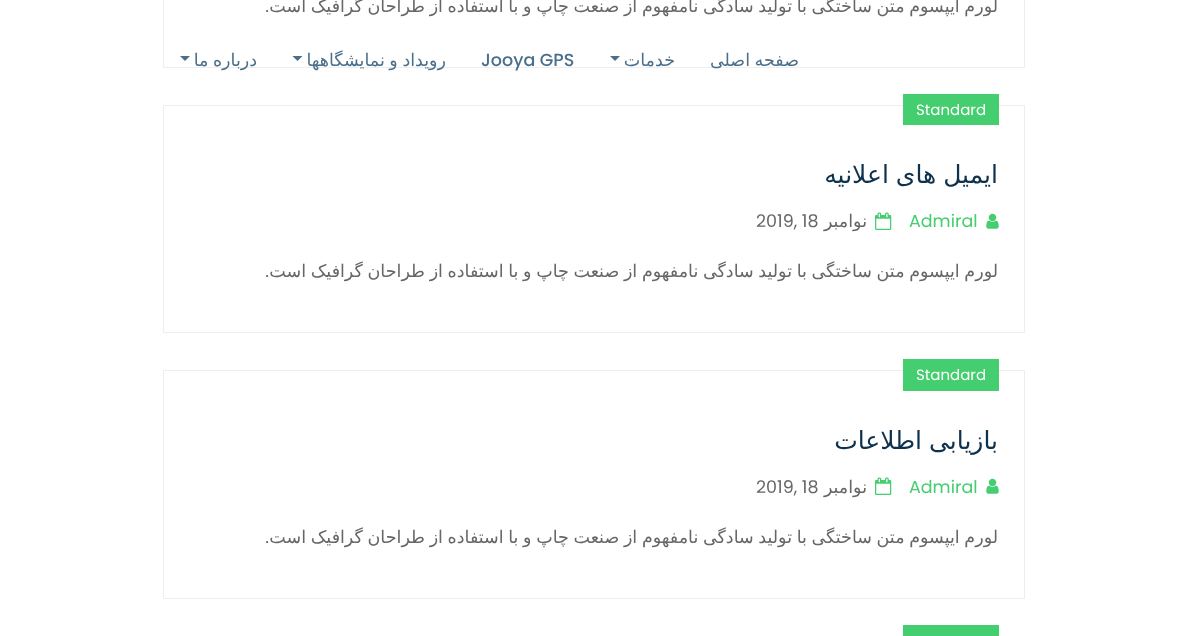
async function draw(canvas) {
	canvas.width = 1186;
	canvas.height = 636;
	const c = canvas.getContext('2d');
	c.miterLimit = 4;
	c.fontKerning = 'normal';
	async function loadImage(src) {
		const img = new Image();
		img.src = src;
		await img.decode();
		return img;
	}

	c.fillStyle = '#fff';
	c.fillRect(0, 0, 1186, 636);
	c.strokeStyle = '#eee';
	c.strokeRect(163.5, -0.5, 861, 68);
	c.wordSpacing = '-0.9px';
	c.direction = 'rtl';
	c.font = '17.5px DejaVu Sans';
	c.fillStyle = '#666';
	c.fillText('لورم ایپسوم متن ساختگی با تولید سادگی نامفهوم از صنعت چاپ و با استفاده از طراحان گرافیک است', 998, 12);
	c.wordSpacing = '0px';
	c.font = '17.5px Poppins';
	c.fillText('.', 269, 12);
	c.strokeRect(163.5, 105.5, 861, 227);
	c.fillStyle = '#44ce6f';
	c.fillRect(903, 94, 96, 31);
	c.direction = 'ltr';
	c.font = '15px Poppins';
	c.fillStyle = '#fff';
	c.fillText('Standard', 916, 115);
	c.wordSpacing = '-1px';
	c.direction = 'rtl';
	c.font = '25px DejaVu Sans';
	c.fillStyle = '#0e314c';
	c.fillText('ایمیل های اعلانیه', 998, 183);
	c.drawImage(await loadImage('img1.png'), 986, 213, 13, 16);
	c.wordSpacing = '0px';
	c.direction = 'ltr';
	c.font = '17.5px Poppins';
	c.fillStyle = '#44ce6f';
	c.fillText('Admiral', 909, 227);
	c.drawImage(await loadImage('img2.png'), 875, 212, 17, 18);
	c.direction = 'rtl';
	c.font = '17.5px DejaVu Sans';
	c.fillStyle = '#666';
	c.fillText('نوامبر', 867, 227);
	c.direction = 'ltr';
	c.font = '17.5px Poppins';
	c.fillText('2019, 18', 756, 227);
	c.wordSpacing = '-0.9px';
	c.direction = 'rtl';
	c.font = '17.5px DejaVu Sans';
	c.fillText('لورم ایپسوم متن ساختگی با تولید سادگی نامفهوم از صنعت چاپ و با استفاده از طراحان گرافیک است', 998, 277);
	c.wordSpacing = '0px';
	c.font = '17.5px Poppins';
	c.fillText('.', 269, 277);
	c.strokeRect(163.5, 370.5, 861, 228);
	c.fillStyle = '#44ce6f';
	c.fillRect(903, 359, 96, 32);
	c.direction = 'ltr';
	c.font = '15px Poppins';
	c.fillStyle = '#fff';
	c.fillText('Standard', 916, 380);
	c.wordSpacing = '-1px';
	c.direction = 'rtl';
	c.font = '25px DejaVu Sans';
	c.fillStyle = '#0e314c';
	c.fillText('بازیابی اطلاعات', 998, 449);
	c.drawImage(await loadImage('img1.png'), 986, 478, 13, 16);
	c.wordSpacing = '0px';
	c.direction = 'ltr';
	c.font = '17.5px Poppins';
	c.fillStyle = '#44ce6f';
	c.fillText('Admiral', 909, 493);
	c.drawImage(await loadImage('img2.png'), 875, 477, 17, 18);
	c.direction = 'rtl';
	c.font = '17.5px DejaVu Sans';
	c.fillStyle = '#666';
	c.fillText('نوامبر', 867, 493);
	c.direction = 'ltr';
	c.font = '17.5px Poppins';
	c.fillText('2019, 18', 756, 493);
	c.wordSpacing = '-0.9px';
	c.direction = 'rtl';
	c.font = '17.5px DejaVu Sans';
	c.fillText('لورم ایپسوم متن ساختگی با تولید سادگی نامفهوم از صنعت چاپ و با استفاده از طراحان گرافیک است', 998, 543);
	c.wordSpacing = '0px';
	c.font = '17.5px Poppins';
	c.fillText('.', 269, 543);
	c.fillStyle = '#44ce6f';
	c.fillRect(903, 625, 96, 11);
	c.wordSpacing = '-1px';
	c.font = '17.5px DejaVu Sans';
	c.fillStyle = '#4a6f8a';
	c.fillText('صفحه اصلی', 799, 66);
	c.wordSpacing = '0px';
	c.fillText('خدمات', 675, 66);
	c.beginPath();
	c.moveTo(610, 56);
	c.lineTo(620, 56);
	c.lineTo(615, 61);
	c.closePath();
	c.fill();
	c.direction = 'ltr';
	c.font = '500 17.5px Poppins';
	c.fillText('Jooya GPS', 481, 66);
	c.wordSpacing = '-1px';
	c.direction = 'rtl';
	c.font = '17.5px DejaVu Sans';
	c.fillText('رویداد و نمایشگاهها', 446, 66);
	c.beginPath();
	c.moveTo(292.5, 56);
	c.lineTo(302.5, 56);
	c.lineTo(297.5, 61);
	c.closePath();
	c.fill();
	c.fillText('درباره ما', 257, 66);
	c.beginPath();
	c.moveTo(180, 56);
	c.lineTo(190, 56);
	c.lineTo(185, 61);
	c.closePath();
	c.fill();
}

draw(document.querySelector('canvas'));
